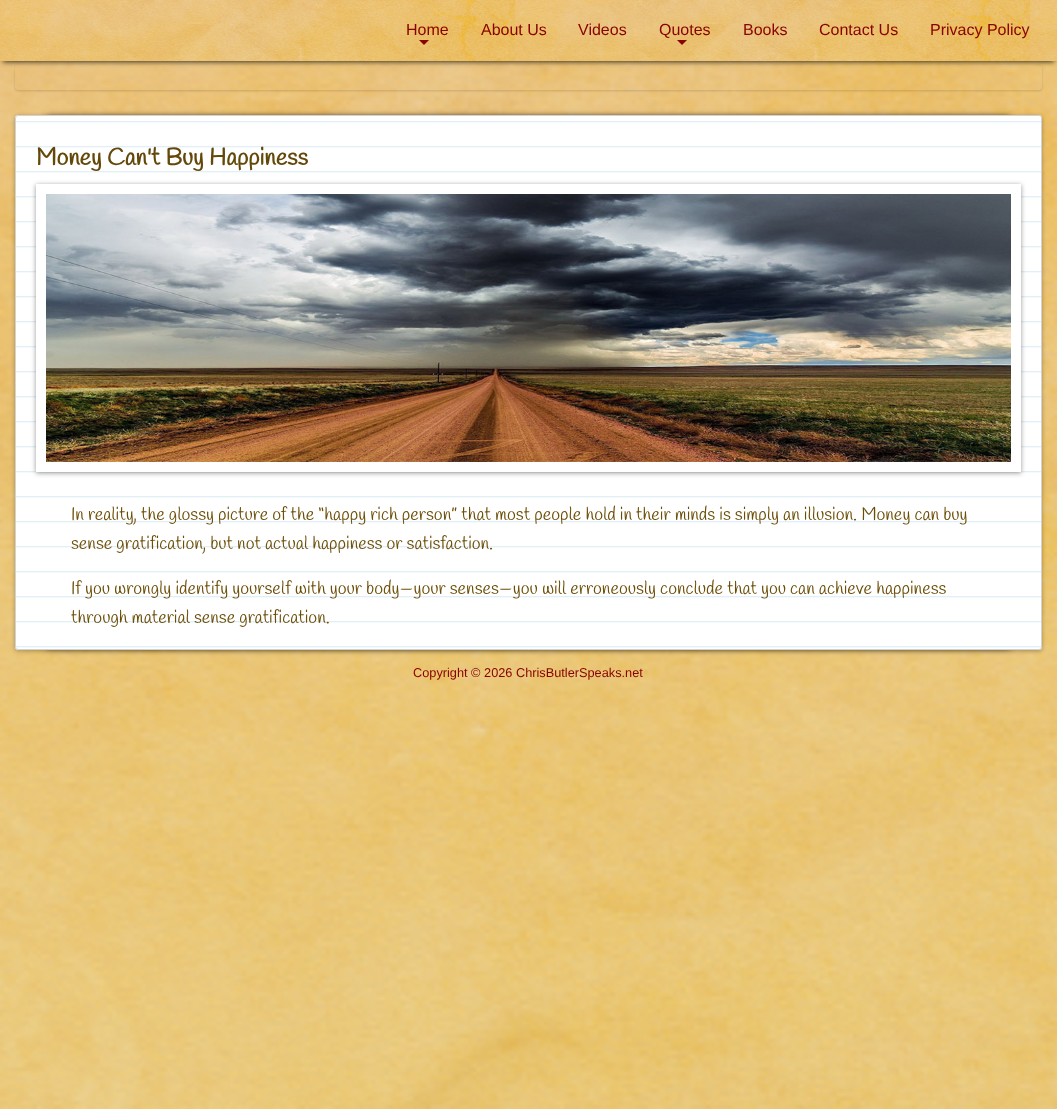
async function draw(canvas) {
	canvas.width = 1057;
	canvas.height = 1109;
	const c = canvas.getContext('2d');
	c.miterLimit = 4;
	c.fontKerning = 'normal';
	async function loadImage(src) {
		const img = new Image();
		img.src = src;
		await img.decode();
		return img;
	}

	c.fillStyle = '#fff';
	c.fillRect(0, 0, 1057, 1109);
	c.drawImage(await loadImage('img1.png'), 0, 61, 1057, 1048);
	c.fillStyle = '#000000bf';
	c.filter = 'blur(2.5px)';
	c.beginPath();
	c.rect(3, 7, 1051, 55);
	c.fill();
	c.filter = 'none';
	c.drawImage(await loadImage('img2.png'), 0, 0, 1057, 61);
	c.font = '16px Liberation Sans';
	c.fillStyle = '#880200';
	c.fillText('Home', 406, 35);
	c.beginPath();
	c.moveTo(419, 40);
	c.lineTo(429, 40);
	c.lineTo(424, 45);
	c.closePath();
	c.fill();
	for (const [text, x, y] of [
		['About Us', 481, 35],
		['Videos', 578, 35],
		['Quotes', 659, 35],
	]) {
		c.fillText(text, x, y);
	}
	c.beginPath();
	c.moveTo(677, 40);
	c.lineTo(687, 40);
	c.lineTo(682, 45);
	c.closePath();
	c.fill();
	for (const [text, x, y] of [
		['Books', 743, 35],
		['Contact Us', 819, 35],
		['Privacy Policy', 930, 35],
	]) {
		c.fillText(text, x, y);
	}
	c.save();
	c.beginPath();
	c.moveTo(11, 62);
	c.lineTo(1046, 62);
	c.lineTo(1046, 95);
	c.lineTo(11, 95);
	c.closePath();
	c.moveTo(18, 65);
	c.lineTo(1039, 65);
	c.bezierCurveTo(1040.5, 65, 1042, 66.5, 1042, 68);
	c.lineTo(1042, 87);
	c.bezierCurveTo(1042, 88.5, 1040.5, 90, 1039, 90);
	c.lineTo(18, 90);
	c.bezierCurveTo(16.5, 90, 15, 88.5, 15, 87);
	c.lineTo(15, 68);
	c.bezierCurveTo(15, 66.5, 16.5, 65, 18, 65);
	c.closePath();
	c.clip('evenodd');
	c.fillStyle = '#00000012';
	c.filter = 'blur(1px)';
	c.beginPath();
	c.roundRect(15, 66, 1027, 25, 3);
	c.fill();
	c.filter = 'none';
	c.filter = 'blur(1px)';
	c.beginPath();
	c.roundRect(15, 66, 1027, 25, 3);
	c.fill();
	c.filter = 'none';
	c.restore();
	c.fillStyle = '#0000004d';
	c.filter = 'blur(2px)';
	c.beginPath();
	c.roundRect(15, 116, 1027, 535, 3);
	c.fill();
	c.filter = 'none';
	c.fillStyle = '#00000099';
	c.filter = 'blur(3px)';
	c.beginPath();
	c.roundRect(46, 116, 965, 533, 4);
	c.fill();
	c.filter = 'none';
	c.drawImage(await loadImage('img3.png'), 15, 115, 1027, 535);
	c.beginPath();
	c.roundRect(15.5, 115.5, 1026, 534, 2.5);
	c.strokeStyle = '#d2d2d2';
	c.stroke();
	c.font = 'bold 24px Handlee';
	c.fillStyle = '#634809';
	c.fillText('Money Can\'t Buy Happiness', 36, 165);
	c.fillStyle = '#32323282';
	c.filter = 'blur(2.5px)';
	c.beginPath();
	c.rect(36, 185, 985, 288);
	c.fill();
	c.filter = 'none';
	c.strokeStyle = '#fff';
	c.lineWidth = 10;
	c.strokeRect(41, 189, 975, 278);
	c.drawImage(await loadImage('img4.png'), 46, 194, 965, 268);
	c.font = '18px Handlee';
	c.fillStyle = '#6b4d05';
	for (const [text, x, y] of [
		['In reality, the glossy picture of the “happy rich person” that most people hold in their minds is simply an illusion. Money can buy', 71, 520],
		['sense gratification, but not actual happiness or satisfaction.', 71, 549],
		['If you wrongly identify yourself with your body—your senses—you will erroneously conclude that you can achieve happiness', 71, 594],
		['through material sense gratification.', 71, 623],
	]) {
		c.fillText(text, x, y);
	}
	c.font = '12.75px Liberation Sans';
	c.fillStyle = '#880200';
	c.fillText('Copyright © 2026 ChrisButlerSpeaks.net', 413, 677);
}

draw(document.querySelector('canvas'));
